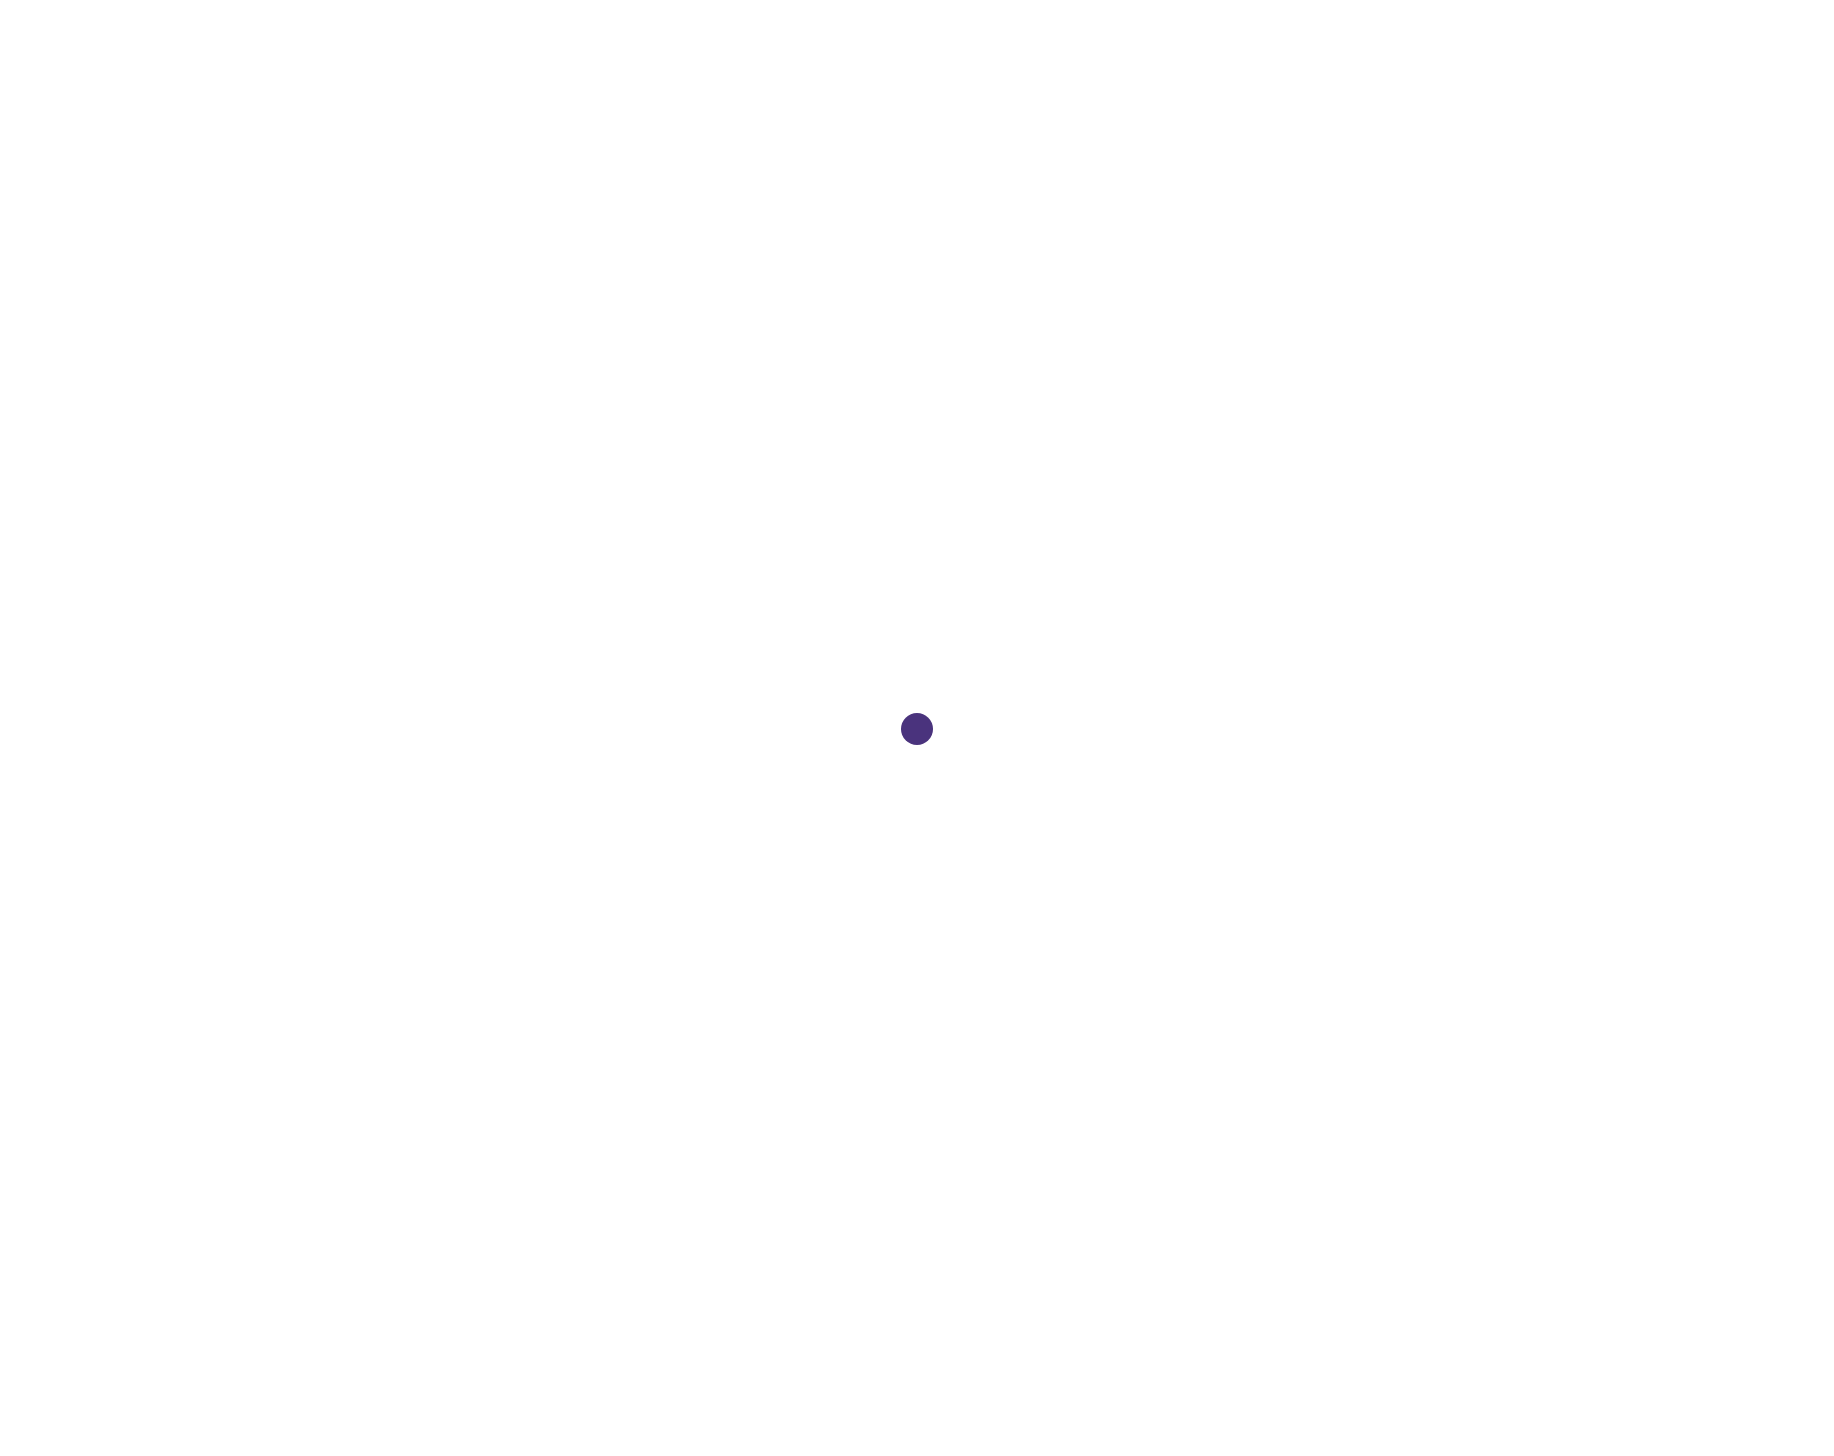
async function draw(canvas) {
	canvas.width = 1834;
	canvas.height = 1456;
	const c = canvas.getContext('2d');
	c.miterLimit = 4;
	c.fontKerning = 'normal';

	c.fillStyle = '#fff';
	c.fillRect(0, 0, 1834, 1456);
	c.fillStyle = '#4a337d';
	c.beginPath();
	c.arc(917, 729, 16, 0, 2 * Math.PI);
	c.fill();
}

draw(document.querySelector('canvas'));
